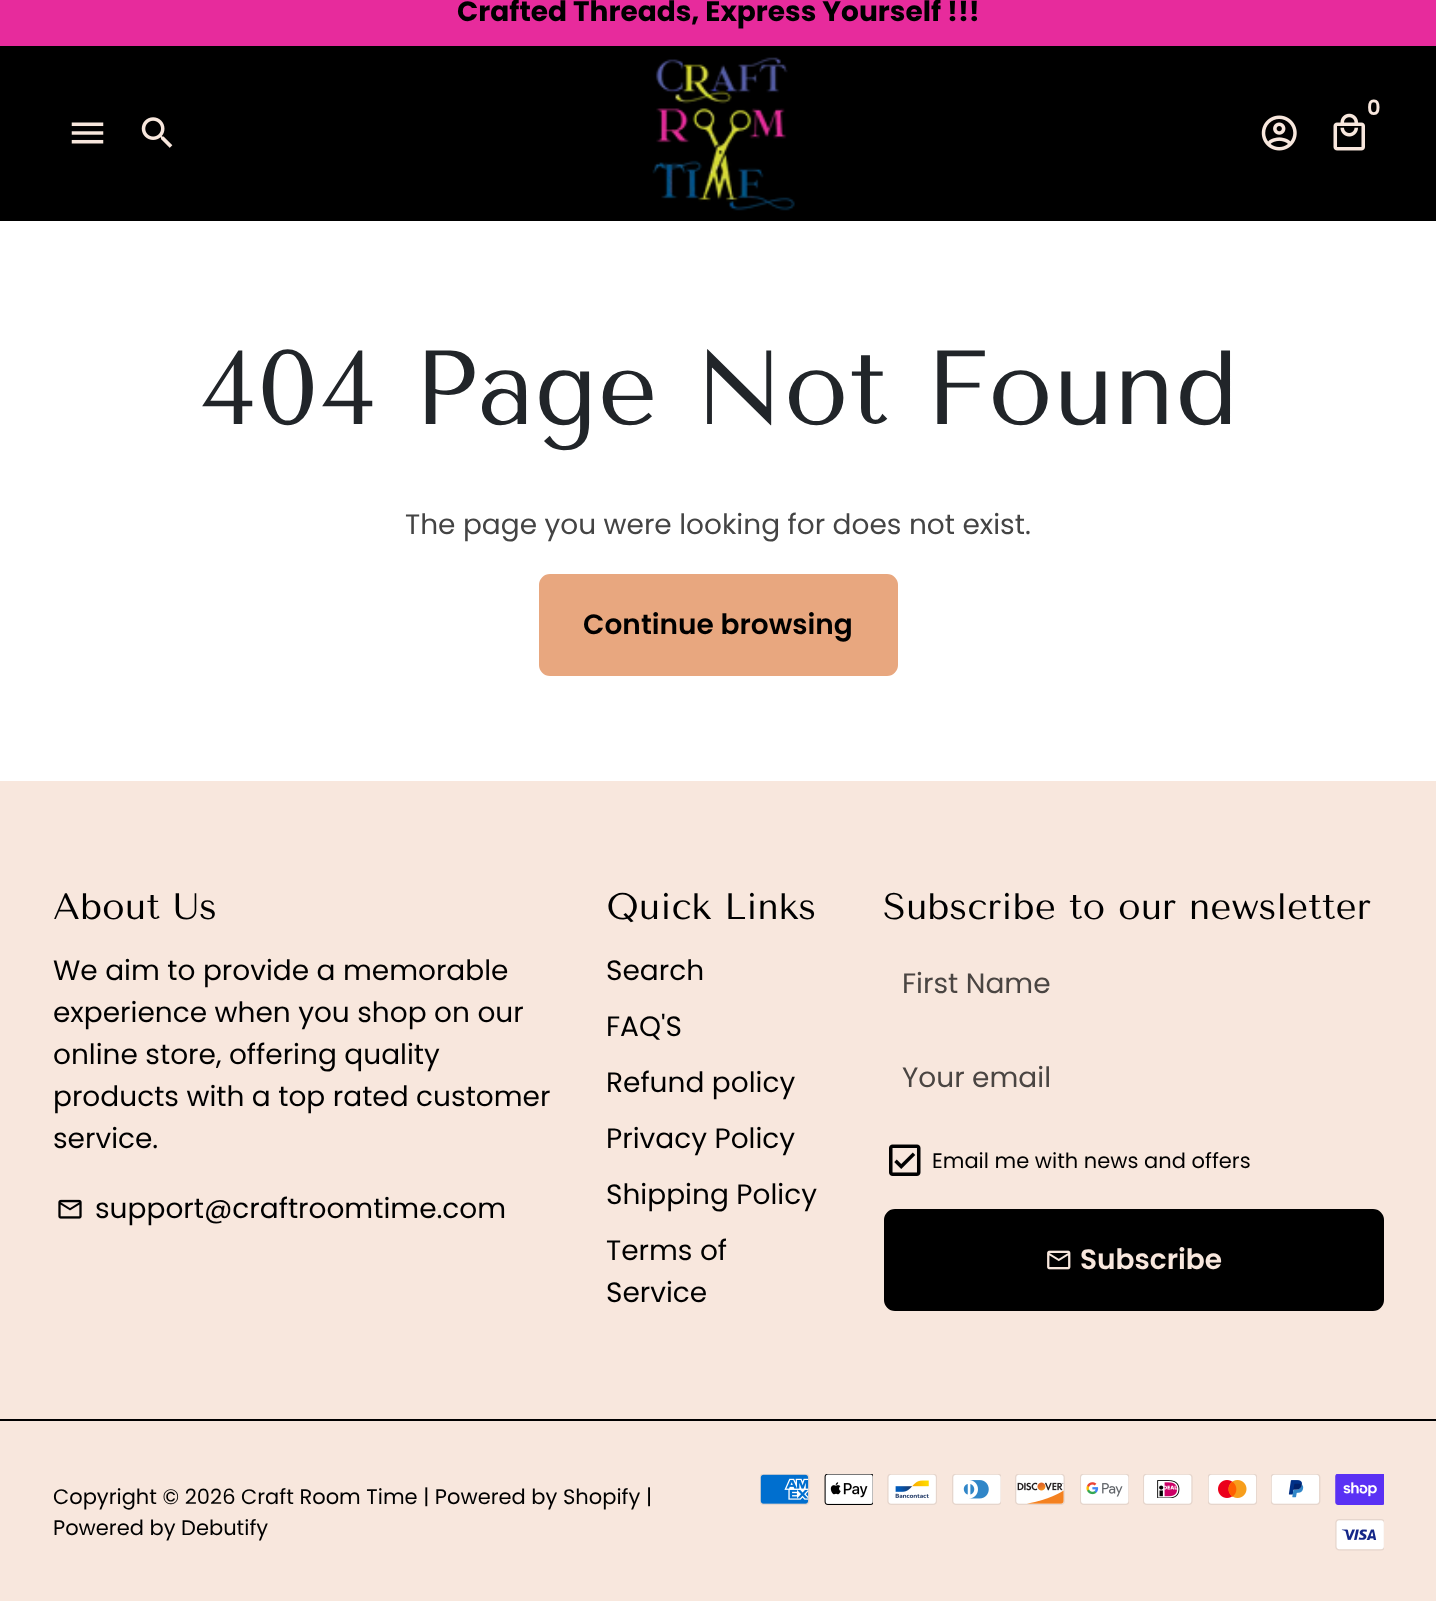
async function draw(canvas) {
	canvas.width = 1436;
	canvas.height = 1601;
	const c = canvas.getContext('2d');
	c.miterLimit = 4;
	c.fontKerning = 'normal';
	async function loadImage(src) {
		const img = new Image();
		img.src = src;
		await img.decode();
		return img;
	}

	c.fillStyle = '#fff';
	c.fillRect(0, 0, 1436, 1601);
	c.fillStyle = '#e72b9c';
	c.fillRect(0, 0, 1436, 46);
	c.font = 'bold 28px Poppins';
	c.fillStyle = '#000';
	c.fillText('Crafted Threads, Express Yourself !!!', 457, 21);
	c.fillRect(0, 46, 1436, 175);
	c.drawImage(await loadImage('img1.png'), 652, 57, 143, 154);
	c.font = '600 21px Poppins';
	c.fillStyle = '#f8e7dd';
	c.fillText('0', 1367, 115);
	c.drawImage(await loadImage('img2.png'), 1333, 113, 32, 38);
	c.drawImage(await loadImage('img3.png'), 1261, 115, 36, 36);
	c.drawImage(await loadImage('img4.png'), 71, 122, 33, 22);
	c.drawImage(await loadImage('img5.png'), 141, 117, 32, 31);
	c.font = '105px Tenor Sans';
	c.fillStyle = '#212529';
	c.fillText('404 Page Not Found', 199, 424);
	c.font = '28px Poppins';
	c.fillStyle = '#444';
	c.fillText('The page you were looking for does not exist.', 405, 534);
	c.fillStyle = '#e8a77f';
	c.beginPath();
	c.roundRect(540, 575, 357, 100, 10);
	c.fill();
	c.strokeStyle = '#e8a77f';
	c.lineWidth = 2;
	c.stroke();
	c.font = '600 28px Poppins';
	c.fillStyle = '#000';
	c.fillText('Continue browsing', 583, 634);
	c.fillStyle = '#f8e7dd';
	c.fillRect(0, 781, 1436, 820);
	c.font = '36.75px Tenor Sans';
	c.fillStyle = '#000';
	c.fillText('About Us', 53, 919);
	c.font = '28px Poppins';
	for (const [text, x, y] of [
		['We aim to provide a memorable', 53, 980],
		['experience when you shop on our', 53, 1022],
		['online store, offering quality', 53, 1064],
		['products with a top rated customer', 53, 1106],
		['service.', 53, 1148],
	]) {
		c.fillText(text, x, y);
	}
	c.drawImage(await loadImage('img6.png'), 58, 1199, 24, 20);
	c.fillText('support@craftroomtime.com', 95, 1218);
	c.font = '36.75px Tenor Sans';
	c.fillText('Quick Links', 606, 919);
	c.font = '28px Poppins';
	for (const [text, x, y] of [
		['Search', 606, 980],
		['FAQ\'S', 606, 1036],
		['Refund policy', 606, 1092],
		['Privacy Policy', 606, 1148],
		['Shipping Policy', 606, 1204],
		['Terms of', 606, 1260],
		['Service', 606, 1302],
	]) {
		c.fillText(text, x, y);
	}
	c.font = '36.75px Tenor Sans';
	c.fillText('Subscribe to our newsletter', 883, 919);
	c.font = '28px Poppins';
	c.fillStyle = '#4a4542';
	c.fillText('First Name', 902, 993);
	c.fillText('Your email', 902, 1087);
	c.drawImage(await loadImage('img7.png'), 889, 1144, 32, 32);
	c.font = '21px Poppins';
	c.fillStyle = '#000';
	c.fillText('Email me with news and offers', 932, 1168);
	c.beginPath();
	c.roundRect(885, 1210, 498, 100, 10);
	c.fill();
	c.strokeStyle = '#000';
	c.stroke();
	c.drawImage(await loadImage('img8.png'), 1047, 1250, 24, 20);
	c.font = '600 28px Poppins';
	c.fillStyle = '#f8e7dd';
	c.fillText('Subscribe', 1080, 1269);
	c.fillStyle = '#000';
	c.fillRect(0, 1419, 1436, 2);
	c.font = '21px Poppins';
	c.fillText('Copyright © 2026 Craft Room Time | Powered by Shopify |', 53, 1504);
	c.fillText('Powered by Debutify', 53, 1535);
	c.drawImage(await loadImage('img9.png'), 760, 1474, 50, 31);
	c.drawImage(await loadImage('img10.png'), 824, 1474, 49, 31);
	c.drawImage(await loadImage('img11.png'), 887, 1474, 50, 31);
	c.drawImage(await loadImage('img12.png'), 952, 1474, 49, 31);
	c.drawImage(await loadImage('img13.png'), 1015, 1474, 50, 31);
	c.drawImage(await loadImage('img14.png'), 1080, 1474, 49, 31);
	c.drawImage(await loadImage('img15.png'), 1143, 1474, 50, 31);
	c.drawImage(await loadImage('img16.png'), 1208, 1474, 49, 31);
	c.drawImage(await loadImage('img17.png'), 1271, 1474, 50, 31);
	c.drawImage(await loadImage('img18.png'), 1335, 1474, 49, 31);
	c.drawImage(await loadImage('img19.png'), 1335, 1519, 49, 32);
}

draw(document.querySelector('canvas'));
